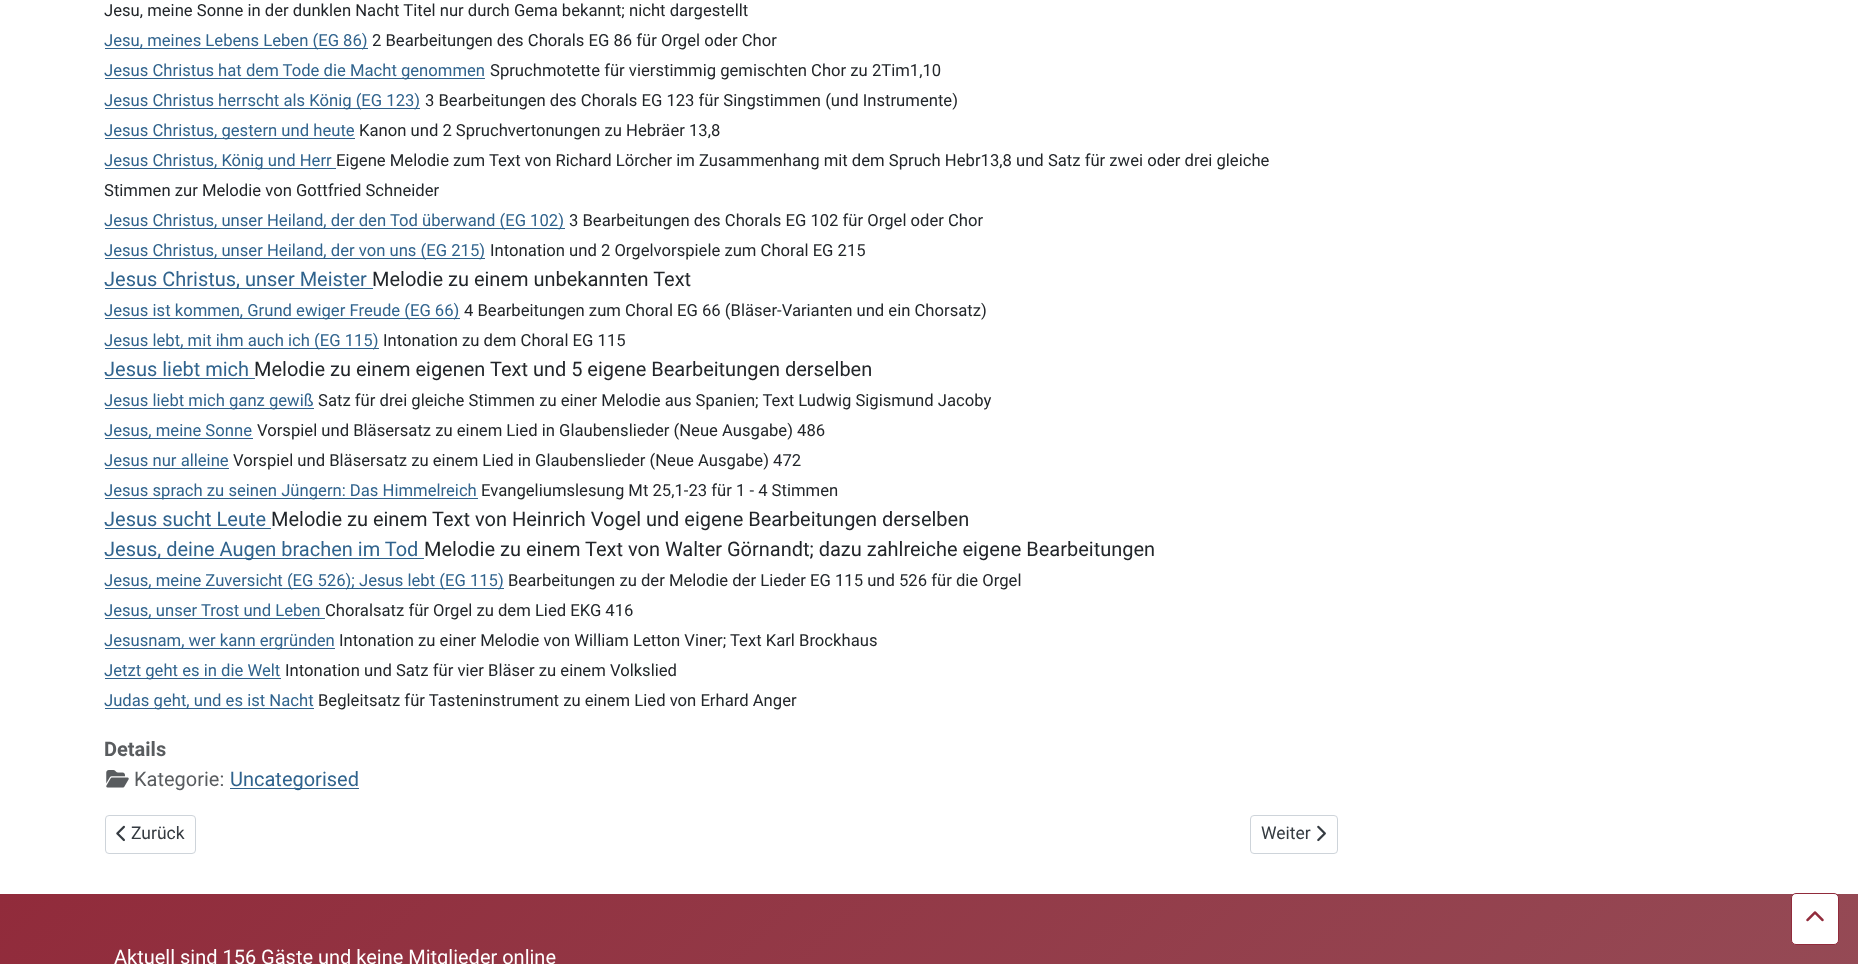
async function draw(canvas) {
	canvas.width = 1858;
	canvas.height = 964;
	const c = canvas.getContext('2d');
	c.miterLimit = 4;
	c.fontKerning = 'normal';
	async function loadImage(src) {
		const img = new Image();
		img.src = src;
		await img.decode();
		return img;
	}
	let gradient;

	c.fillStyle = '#fff';
	c.fillRect(0, 0, 1858, 964);
	c.font = '16.67px Roboto';
	c.fillStyle = '#22262a';
	c.fillText('Jesu, meine Sonne in der dunklen Nacht Titel nur durch Gema bekannt; nicht dargestellt', 104, 16);
	c.fillStyle = '#30638d';
	c.fillRect(105, 48, 263, 1);
	c.fillText('Jesu, meines Lebens Leben (EG 86)', 104, 46);
	c.fillStyle = '#22262a';
	c.fillText('2 Bearbeitungen des Chorals EG 86 für Orgel oder Chor', 372, 46);
	c.fillStyle = '#30638d';
	c.fillRect(105, 78, 380, 1);
	c.fillText('Jesus Christus hat dem Tode die Macht genommen', 104, 76);
	c.fillStyle = '#22262a';
	c.fillText('Spruchmotette für vierstimmig gemischten Chor zu 2Tim1,10', 490, 76);
	c.fillStyle = '#30638d';
	c.fillRect(105, 108, 315, 1);
	c.fillText('Jesus Christus herrscht als König (EG 123)', 104, 106);
	c.fillStyle = '#22262a';
	c.fillText('3 Bearbeitungen des Chorals EG 123 für Singstimmen (und Instrumente)', 425, 106);
	c.fillStyle = '#30638d';
	c.fillRect(105, 138, 250, 1);
	c.fillText('Jesus Christus, gestern und heute', 104, 136);
	c.fillStyle = '#22262a';
	c.fillText('Kanon und 2 Spruchvertonungen zu Hebräer 13,8', 359, 136);
	c.fillStyle = '#30638d';
	c.fillRect(105, 168, 231, 1);
	c.fillText('Jesus Christus, König und Herr', 104, 166);
	c.fillStyle = '#22262a';
	c.fillText('Eigene Melodie zum Text von Richard Lörcher im Zusammenhang mit dem Spruch Hebr13,8 und Satz für zwei oder drei gleiche', 336, 166);
	c.fillText('Stimmen zur Melodie von Gottfried Schneider', 104, 196);
	c.fillStyle = '#30638d';
	c.fillRect(105, 228, 460, 1);
	c.fillText('Jesus Christus, unser Heiland, der den Tod überwand (EG 102)', 104, 226);
	c.fillStyle = '#22262a';
	c.fillText('3 Bearbeitungen des Chorals EG 102 für Orgel oder Chor', 569, 226);
	c.fillStyle = '#30638d';
	c.fillRect(105, 258, 380, 1);
	c.fillText('Jesus Christus, unser Heiland, der von uns (EG 215)', 104, 256);
	c.fillStyle = '#22262a';
	c.fillText('Intonation und 2 Orgelvorspiele zum Choral EG 215', 490, 256);
	c.fillStyle = '#30638d';
	c.fillRect(105, 288, 268, 1);
	c.font = '20px Roboto';
	c.fillText('Jesus Christus, unser Meister', 104, 286);
	c.fillStyle = '#22262a';
	c.fillText('Melodie zu einem unbekannten Text', 372, 286);
	c.fillStyle = '#30638d';
	c.fillRect(105, 318, 355, 1);
	c.font = '16.67px Roboto';
	c.fillText('Jesus ist kommen, Grund ewiger Freude (EG 66)', 104, 316);
	c.fillStyle = '#22262a';
	c.fillText('4 Bearbeitungen zum Choral EG 66 (Bläser-Varianten und ein Chorsatz)', 464, 316);
	c.fillStyle = '#30638d';
	c.fillRect(105, 348, 274, 1);
	c.fillText('Jesus lebt, mit ihm auch ich (EG 115)', 104, 346);
	c.fillStyle = '#22262a';
	c.fillText('Intonation zu dem Choral EG 115', 383, 346);
	c.font = '20px Roboto';
	c.fillStyle = '#30638d';
	c.fillText('Jesus liebt mich', 104, 376);
	c.fillRect(105, 378, 150, 1);
	c.fillStyle = '#22262a';
	c.fillText('Melodie zu einem eigenen Text und 5 eigene Bearbeitungen derselben', 254, 376);
	c.fillStyle = '#30638d';
	c.fillRect(105, 408, 209, 1);
	c.font = '16.67px Roboto';
	c.fillText('Jesus liebt mich ganz gewiß', 104, 406);
	c.fillStyle = '#22262a';
	c.fillText('Satz für drei gleiche Stimmen zu einer Melodie aus Spanien; Text Ludwig Sigismund Jacoby', 318, 406);
	c.fillStyle = '#30638d';
	c.fillRect(105, 438, 148, 1);
	c.fillText('Jesus, meine Sonne', 104, 436);
	c.fillStyle = '#22262a';
	c.fillText('Vorspiel und Bläsersatz zu einem Lied in Glaubenslieder (Neue Ausgabe) 486', 257, 436);
	c.fillStyle = '#30638d';
	c.fillText('Jesus nur alleine', 104, 466);
	c.fillRect(105, 468, 124, 1);
	c.fillStyle = '#22262a';
	c.fillText('Vorspiel und Bläsersatz zu einem Lied in Glaubenslieder (Neue Ausgabe) 472', 233, 466);
	c.fillStyle = '#30638d';
	c.fillRect(105, 498, 373, 1);
	c.fillText('Jesus sprach zu seinen Jüngern: Das Himmelreich', 104, 496);
	c.fillStyle = '#22262a';
	c.fillText('Evangeliumslesung Mt 25,1-23 für 1 - 4 Stimmen', 481, 496);
	c.font = '20px Roboto';
	c.fillStyle = '#30638d';
	c.fillText('Jesus sucht Leute', 104, 526);
	c.fillRect(105, 528, 166, 1);
	c.fillStyle = '#22262a';
	c.fillText('Melodie zu einem Text von Heinrich Vogel und eigene Bearbeitungen derselben', 271, 526);
	c.fillStyle = '#30638d';
	c.fillRect(105, 558, 319, 1);
	c.fillText('Jesus, deine Augen brachen im Tod', 104, 556);
	c.fillStyle = '#22262a';
	c.fillText('Melodie zu einem Text von Walter Görnandt; dazu zahlreiche eigene Bearbeitungen', 424, 556);
	c.fillStyle = '#30638d';
	c.fillRect(105, 588, 399, 1);
	c.font = '16.67px Roboto';
	c.fillText('Jesus, meine Zuversicht (EG 526); Jesus lebt (EG 115)', 104, 586);
	c.fillStyle = '#22262a';
	c.fillText('Bearbeitungen zu der Melodie der Lieder EG 115 und 526 für die Orgel', 508, 586);
	c.fillStyle = '#30638d';
	c.fillRect(105, 618, 220, 1);
	c.fillText('Jesus, unser Trost und Leben', 104, 616);
	c.fillStyle = '#22262a';
	c.fillText('Choralsatz für Orgel zu dem Lied EKG 416', 325, 616);
	c.fillStyle = '#30638d';
	c.fillRect(105, 648, 230, 1);
	c.fillText('Jesusnam, wer kann ergründen', 104, 646);
	c.fillStyle = '#22262a';
	c.fillText('Intonation zu einer Melodie von William Letton Viner; Text Karl Brockhaus', 339, 646);
	c.fillStyle = '#30638d';
	c.fillRect(105, 678, 176, 1);
	c.fillText('Jetzt geht es in die Welt', 104, 676);
	c.fillStyle = '#22262a';
	c.fillText('Intonation und Satz für vier Bläser zu einem Volkslied', 285, 676);
	c.fillStyle = '#30638d';
	c.fillRect(105, 708, 209, 1);
	c.fillText('Judas geht, und es ist Nacht', 104, 706);
	c.fillStyle = '#22262a';
	c.fillText('Begleitsatz für Tasteninstrument zu einem Lied von Erhard Anger', 318, 706);
	c.font = 'bold 20px Roboto';
	c.fillStyle = '#595c5f';
	c.fillText('Details', 104, 756);
	c.drawImage(await loadImage('img1.png'), 106, 770, 23, 18);
	c.font = '20px Roboto';
	c.fillText('Kategorie:', 134, 786);
	c.fillStyle = '#30638d';
	c.fillRect(230, 788, 129, 1);
	c.fillText('Uncategorised', 230, 786);
	c.beginPath();
	c.roundRect(105.5, 815.5, 90, 38, 3.5);
	c.strokeStyle = '#ced4da';
	c.stroke();
	c.drawImage(await loadImage('img2.png'), 116, 825, 9, 17);
	c.font = '17.5px Roboto';
	c.fillStyle = '#353b41';
	c.fillText('Zurück', 131, 839);
	c.beginPath();
	c.roundRect(1250.5, 815.5, 87, 38, 3.5);
	c.stroke();
	c.fillText('Weiter', 1261, 839);
	c.drawImage(await loadImage('img3.png'), 1317, 825, 9, 17);
	gradient = c.createLinearGradient(427, 467, 1432, 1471);
	gradient.addColorStop(0, '#912b3b');
	gradient.addColorStop(1, '#954b56');
	c.fillStyle = gradient;
	c.fillRect(0, 894, 1858, 70);
	c.fillStyle = '#fff';
	c.beginPath();
	c.roundRect(1791.5, 893.5, 47, 51, 4.5);
	c.fill();
	c.strokeStyle = '#912b3b';
	c.stroke();
	c.drawImage(await loadImage('img4.png'), 1806, 911, 18, 11);
	c.font = '20px Roboto';
	c.fillText('Aktuell sind 156 Gäste und keine Mitglieder online', 114, 964);
}

draw(document.querySelector('canvas'));
